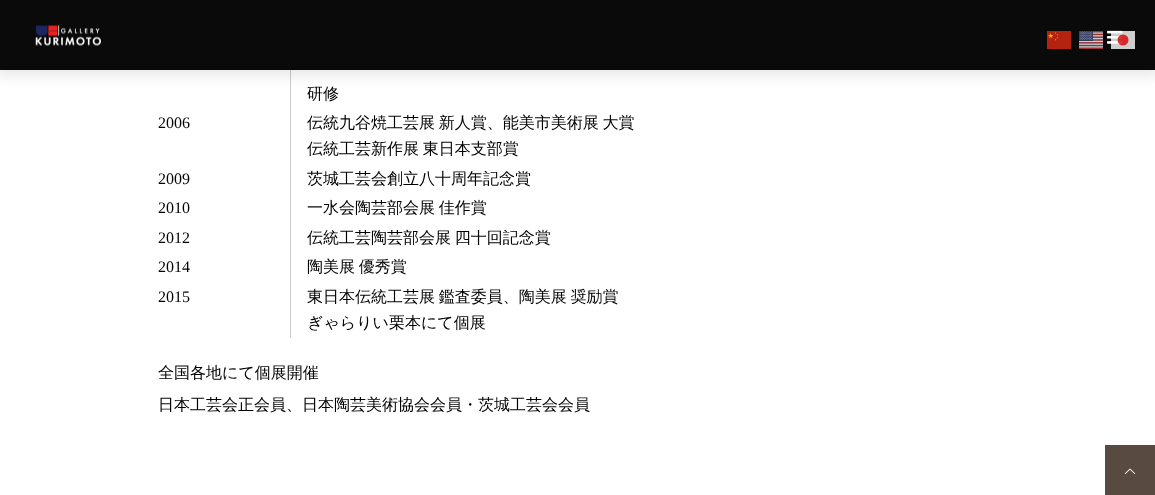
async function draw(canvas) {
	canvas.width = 1155;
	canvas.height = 495;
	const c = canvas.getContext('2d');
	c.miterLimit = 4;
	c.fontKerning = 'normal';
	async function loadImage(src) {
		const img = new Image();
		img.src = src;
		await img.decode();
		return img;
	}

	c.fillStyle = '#fff';
	c.fillRect(0, 0, 1155, 495);
	c.fillStyle = '#ccc';
	c.fillRect(290, 70, 1, 268);
	c.fillStyle = '#0000001a';
	c.filter = 'blur(7.5px)';
	c.beginPath();
	c.rect(-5, -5, 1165, 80);
	c.fill();
	c.filter = 'none';
	c.fillStyle = '#0a0a0a';
	c.fillRect(0, 0, 1155, 70);
	c.drawImage(await loadImage('img1.png'), 1047, 31, 24, 18);
	c.drawImage(await loadImage('img2.png'), 1079, 31, 24, 18);
	c.drawImage(await loadImage('img4.png'), 1107, 30, 16, 14);
	c.fillStyle = '#ffffffcc';
	c.fillRect(1111, 31, 24, 18);
	c.fillStyle = '#d30000cc';
	c.beginPath();
	c.arc(1123, 40, 5.5, 0, 2 * Math.PI);
	c.fill();
	c.drawImage(await loadImage('img3.png'), 35, 25, 67, 21);
	c.font = '500 16px WenQuanYi Zen Hei';
	c.fillStyle = '#000';
	c.fillText('研修', 307, 99);
	c.font = '16px Liberation Serif';
	c.fillText('2006', 158, 128);
	c.wordSpacing = '-1px';
	c.font = '500 16px WenQuanYi Zen Hei';
	c.fillText('伝統九谷焼工芸展 新人賞、能美市美術展 大賞', 307, 128);
	c.fillText('伝統工芸新作展 東日本支部賞', 307, 154);
	c.wordSpacing = '0px';
	c.font = '16px Liberation Serif';
	c.fillText('2009', 158, 184);
	c.font = '500 16px WenQuanYi Zen Hei';
	c.fillText('茨城工芸会創立八十周年記念賞', 307, 184);
	c.font = '16px Liberation Serif';
	c.fillText('2010', 158, 213);
	c.wordSpacing = '-1px';
	c.font = '500 16px WenQuanYi Zen Hei';
	c.fillText('一水会陶芸部会展 佳作賞', 307, 213);
	c.wordSpacing = '0px';
	c.font = '16px Liberation Serif';
	c.fillText('2012', 158, 243);
	c.wordSpacing = '-1px';
	c.font = '500 16px WenQuanYi Zen Hei';
	c.fillText('伝統工芸陶芸部会展 四十回記念賞', 307, 243);
	c.wordSpacing = '0px';
	c.font = '16px Liberation Serif';
	c.fillText('2014', 158, 272);
	c.wordSpacing = '-1px';
	c.font = '500 16px WenQuanYi Zen Hei';
	c.fillText('陶美展 優秀賞', 307, 272);
	c.wordSpacing = '0px';
	c.font = '16px Liberation Serif';
	c.fillText('2015', 158, 302);
	c.wordSpacing = '-1px';
	c.font = '500 16px WenQuanYi Zen Hei';
	c.fillText('東日本伝統工芸展 鑑査委員、陶美展 奨励賞', 307, 302);
	c.wordSpacing = '0px';
	for (const [text, x, y] of [
		['ぎゃらりい栗本にて個展', 307, 328],
		['全国各地にて個展開催', 158, 378],
		['日本工芸会正会員、日本陶芸美術協会会員・茨城工芸会会員', 158, 410],
	]) {
		c.fillText(text, x, y);
	}
	c.fillStyle = '#594a41';
	c.fillRect(1105, 445, 50, 50);
	c.drawImage(await loadImage('img5.png'), 1124, 468, 12, 6);
}

draw(document.querySelector('canvas'));
